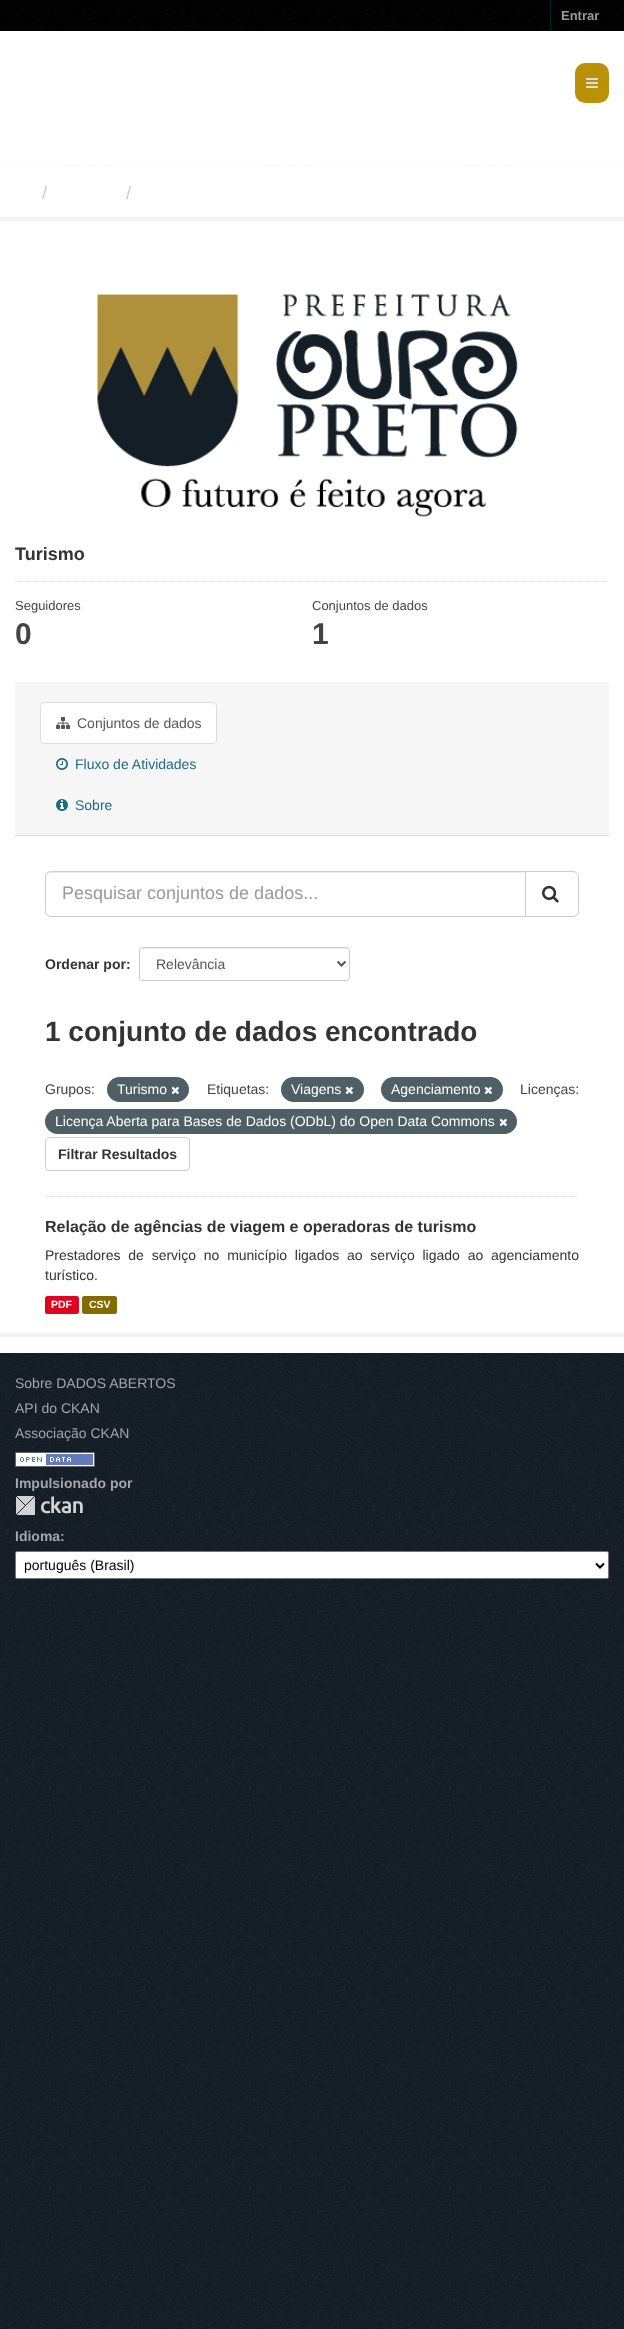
async function draw(canvas) {
	canvas.width = 624;
	canvas.height = 2329;
	const c = canvas.getContext('2d');
	c.miterLimit = 4;
	c.fontKerning = 'normal';
	async function loadImage(src) {
		const img = new Image();
		img.src = src;
		await img.decode();
		return img;
	}

	c.fillStyle = '#151e27';
	c.fillRect(0, 0, 624, 2329);
	c.drawImage(await loadImage('img1.png'), 0, 1599, 624, 730);
	c.fillStyle = '#000';
	c.fillRect(0, 0, 624, 31);
	c.drawImage(await loadImage('img2.png'), 0, 0, 624, 31);
	c.fillStyle = '#00232e';
	c.fillRect(550, 0, 1, 31);
	c.font = 'bold 13px Liberation Sans';
	c.fillStyle = '#9a9a9a';
	c.fillText('Entrar', 561, 20);
	c.fillStyle = '#fff';
	c.fillRect(0, 31, 624, 1322);
	c.drawImage(await loadImage('img3.png'), 0, 165, 624, 1);
	c.fillStyle = '#bb9107';
	c.beginPath();
	c.roundRect(575, 63, 34, 40, 10);
	c.fill();
	c.drawImage(await loadImage('img4.png'), 586, 78, 12, 10);
	c.font = '18px Liberation Sans';
	c.fillStyle = '#ccc';
	c.fillText('/', 42, 199);
	c.fillText('/', 126, 199);
	c.strokeStyle = '#f2f2f2';
	c.lineWidth = 4;
	c.strokeRect(-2, 219, 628, 1116);
	c.drawImage(await loadImage('img5.png'), 97, 294, 421, 223);
	c.font = 'bold 18px Liberation Sans';
	c.fillStyle = '#333';
	c.fillText('Turismo', 15, 560);
	c.beginPath();
	c.moveTo(15, 581.5);
	c.lineTo(608, 581.5);
	c.strokeStyle = '#ddd';
	c.lineWidth = 1;
	c.setLineDash([1, 1]);
	c.stroke();
	c.font = '13px Liberation Sans';
	c.fillStyle = '#444';
	c.fillText('Seguidores', 15, 610);
	c.font = 'bold 30px Liberation Sans';
	c.fillText('0', 15, 644);
	c.font = '13px Liberation Sans';
	c.fillText('Conjuntos de dados', 312, 610);
	c.font = 'bold 30px Liberation Sans';
	c.fillText('1', 312, 644);
	c.fillStyle = '#f6f6f6';
	c.beginPath();
	c.roundRect(15, 682, 594, 154, [0, 3, 0, 0]);
	c.fill();
	c.fillStyle = '#ddd';
	c.fillRect(15, 835, 594, 1);
	c.fillStyle = '#fff';
	c.beginPath();
	c.roundRect(40.5, 702.5, 176, 41, 3.5);
	c.fill();
	c.setLineDash([]);
	c.stroke();
	c.drawImage(await loadImage('img6.png'), 56, 717, 14, 12);
	c.font = '14px Liberation Sans';
	c.fillStyle = '#555';
	c.fillText('Conjuntos de dados', 77, 728);
	c.drawImage(await loadImage('img7.png'), 56, 758, 12, 12);
	c.fillStyle = '#206b82';
	c.fillText('Fluxo de Atividades', 75, 769);
	c.drawImage(await loadImage('img8.png'), 56, 799, 12, 12);
	c.fillText('Sobre', 75, 810);
	c.beginPath();
	c.moveTo(45, 1196.5);
	c.lineTo(579, 1196.5);
	c.setLineDash([1, 1]);
	c.stroke();
	c.fillStyle = '#ececec';
	c.beginPath();
	c.moveTo(51, 873);
	c.lineTo(525, 873);
	c.lineTo(525, 872);
	c.lineTo(51, 872);
	c.bezierCurveTo(48, 872, 46, 874, 46, 877);
	c.lineTo(46, 878);
	c.bezierCurveTo(46, 875, 48, 873, 51, 873);
	c.closePath();
	c.fill();
	c.beginPath();
	c.roundRect(45.5, 871.5, 480, 45, [5.5, 0, 0, 5.5]);
	c.strokeStyle = '#ccc';
	c.setLineDash([]);
	c.stroke();
	c.font = '18px Liberation Sans';
	c.fillStyle = '#9a9a9a';
	c.fillText('Pesquisar conjuntos de dados...', 62, 899);
	c.fillStyle = '#fff';
	c.beginPath();
	c.roundRect(525.5, 871.5, 53, 45, [0, 5.5, 5.5, 0]);
	c.fill();
	c.stroke();
	c.drawImage(await loadImage('img9.png'), 542, 885, 17, 18);
	c.font = 'bold 14px Liberation Sans';
	c.fillStyle = '#333';
	c.fillText('Ordenar por:', 45, 969);
	c.fillStyle = '#ececec';
	c.beginPath();
	c.moveTo(143, 949);
	c.lineTo(346, 949);
	c.bezierCurveTo(348, 949, 349, 950, 349, 952);
	c.lineTo(349, 951);
	c.bezierCurveTo(349, 949, 348, 948, 346, 948);
	c.lineTo(143, 948);
	c.bezierCurveTo(141, 948, 140, 949, 140, 951);
	c.lineTo(140, 952);
	c.bezierCurveTo(140, 950, 141, 949, 143, 949);
	c.closePath();
	c.fill();
	c.beginPath();
	c.roundRect(139.5, 947.5, 210, 33, 3.5);
	c.stroke();
	c.beginPath();
	c.moveTo(337.5, 961.5);
	c.lineTo(341.5, 965.5);
	c.lineTo(345.5, 961.5);
	c.strokeStyle = '#555';
	c.lineWidth = 2;
	c.stroke();
	c.font = '14px Liberation Sans';
	c.fillStyle = '#555';
	c.fillText('Relevância', 156, 969);
	c.font = 'bold 28px Liberation Sans';
	c.fillStyle = '#333';
	c.fillText('1 conjunto de dados encontrado', 45, 1041);
	c.font = '14px Liberation Sans';
	c.fillStyle = '#444';
	c.fillText('Grupos:', 45, 1094);
	c.fillStyle = '#4e5f65';
	c.beginPath();
	c.roundRect(107, 1077, 82, 25, 12.5);
	c.fill();
	c.fillStyle = '#fff';
	c.fillText('Turismo', 117, 1094);
	c.drawImage(await loadImage('img10.png'), 171, 1086, 8, 9);
	c.fillStyle = '#444';
	c.fillText('Etiquetas:', 207, 1094);
	c.fillStyle = '#4e5f65';
	c.beginPath();
	c.roundRect(281, 1077, 83, 25, 12.5);
	c.fill();
	c.fillStyle = '#fff';
	c.fillText('Viagens', 291, 1094);
	c.drawImage(await loadImage('img10.png'), 345, 1086, 8, 9);
	c.fillStyle = '#4e5f65';
	c.beginPath();
	c.roundRect(381, 1077, 122, 25, 12.5);
	c.fill();
	c.fillStyle = '#fff';
	c.fillText('Agenciamento', 391, 1094);
	c.drawImage(await loadImage('img10.png'), 484, 1086, 8, 9);
	c.fillStyle = '#444';
	c.fillText('Licenças:', 520, 1094);
	c.fillStyle = '#4e5f65';
	c.beginPath();
	c.roundRect(45, 1109, 472, 25, 12.5);
	c.fill();
	c.fillStyle = '#fff';
	c.fillText('Licença Aberta para Bases de Dados (ODbL) do Open Data Commons', 55, 1126);
	c.drawImage(await loadImage('img10.png'), 499, 1118, 8, 9);
	c.beginPath();
	c.roundRect(45.5, 1137.5, 144, 33, 3.5);
	c.strokeStyle = '#ccc';
	c.lineWidth = 1;
	c.stroke();
	c.font = 'bold 14px Liberation Sans';
	c.fillStyle = '#333';
	c.fillText('Filtrar Resultados', 58, 1159);
	c.font = 'bold 16px Liberation Sans';
	c.fillText('Relação de agências de viagem e operadoras de turismo', 45, 1232);
	c.wordSpacing = '3.9px';
	c.font = '14px Liberation Sans';
	c.fillText('Prestadores de serviço no município ligados ao serviço ligado ao agenciamento', 45, 1260);
	c.wordSpacing = '0px';
	c.fillText('turístico.', 45, 1280);
	c.fillStyle = '#e0051e';
	c.beginPath();
	c.roundRect(45, 1296, 34, 18, 2.5);
	c.fill();
	c.font = 'bold 10.5px Liberation Sans';
	c.fillStyle = '#fff';
	c.fillText('PDF', 51, 1308);
	c.fillStyle = '#856a00';
	c.beginPath();
	c.roundRect(82, 1296, 35, 18, 2.5);
	c.fill();
	c.fillStyle = '#fff';
	c.fillText('CSV', 89, 1308);
	c.drawImage(await loadImage('img11.png'), 0, 1353, 624, 246);
	c.font = '14px Liberation Sans';
	c.fillStyle = '#a2a5a9';
	for (const [text, x, y] of [
		['Sobre DADOS ABERTOS', 15, 1388],
		['API do CKAN', 15, 1413],
		['Associação CKAN', 15, 1438],
	]) {
		c.fillText(text, x, y);
	}
	c.drawImage(await loadImage('img12.png'), 15, 1452, 80, 15);
	c.font = 'bold 14px Liberation Sans';
	c.fillText('Impulsionado por', 15, 1488);
	c.drawImage(await loadImage('img13.png'), 16, 1496, 67, 19);
	c.fillText('Idioma:', 15, 1541);
	c.fillStyle = '#fff';
	c.beginPath();
	c.roundRect(15.5, 1551.5, 593, 27, 1.5);
	c.fill();
	c.strokeStyle = '#767676';
	c.stroke();
	c.beginPath();
	c.moveTo(596, 1563.5);
	c.lineTo(600, 1567.5);
	c.lineTo(604, 1563.5);
	c.strokeStyle = '#000';
	c.lineWidth = 2;
	c.stroke();
	c.font = '14px Liberation Sans';
	c.fillStyle = '#000';
	c.fillText('português (Brasil)', 24, 1570);
}

draw(document.querySelector('canvas'));
